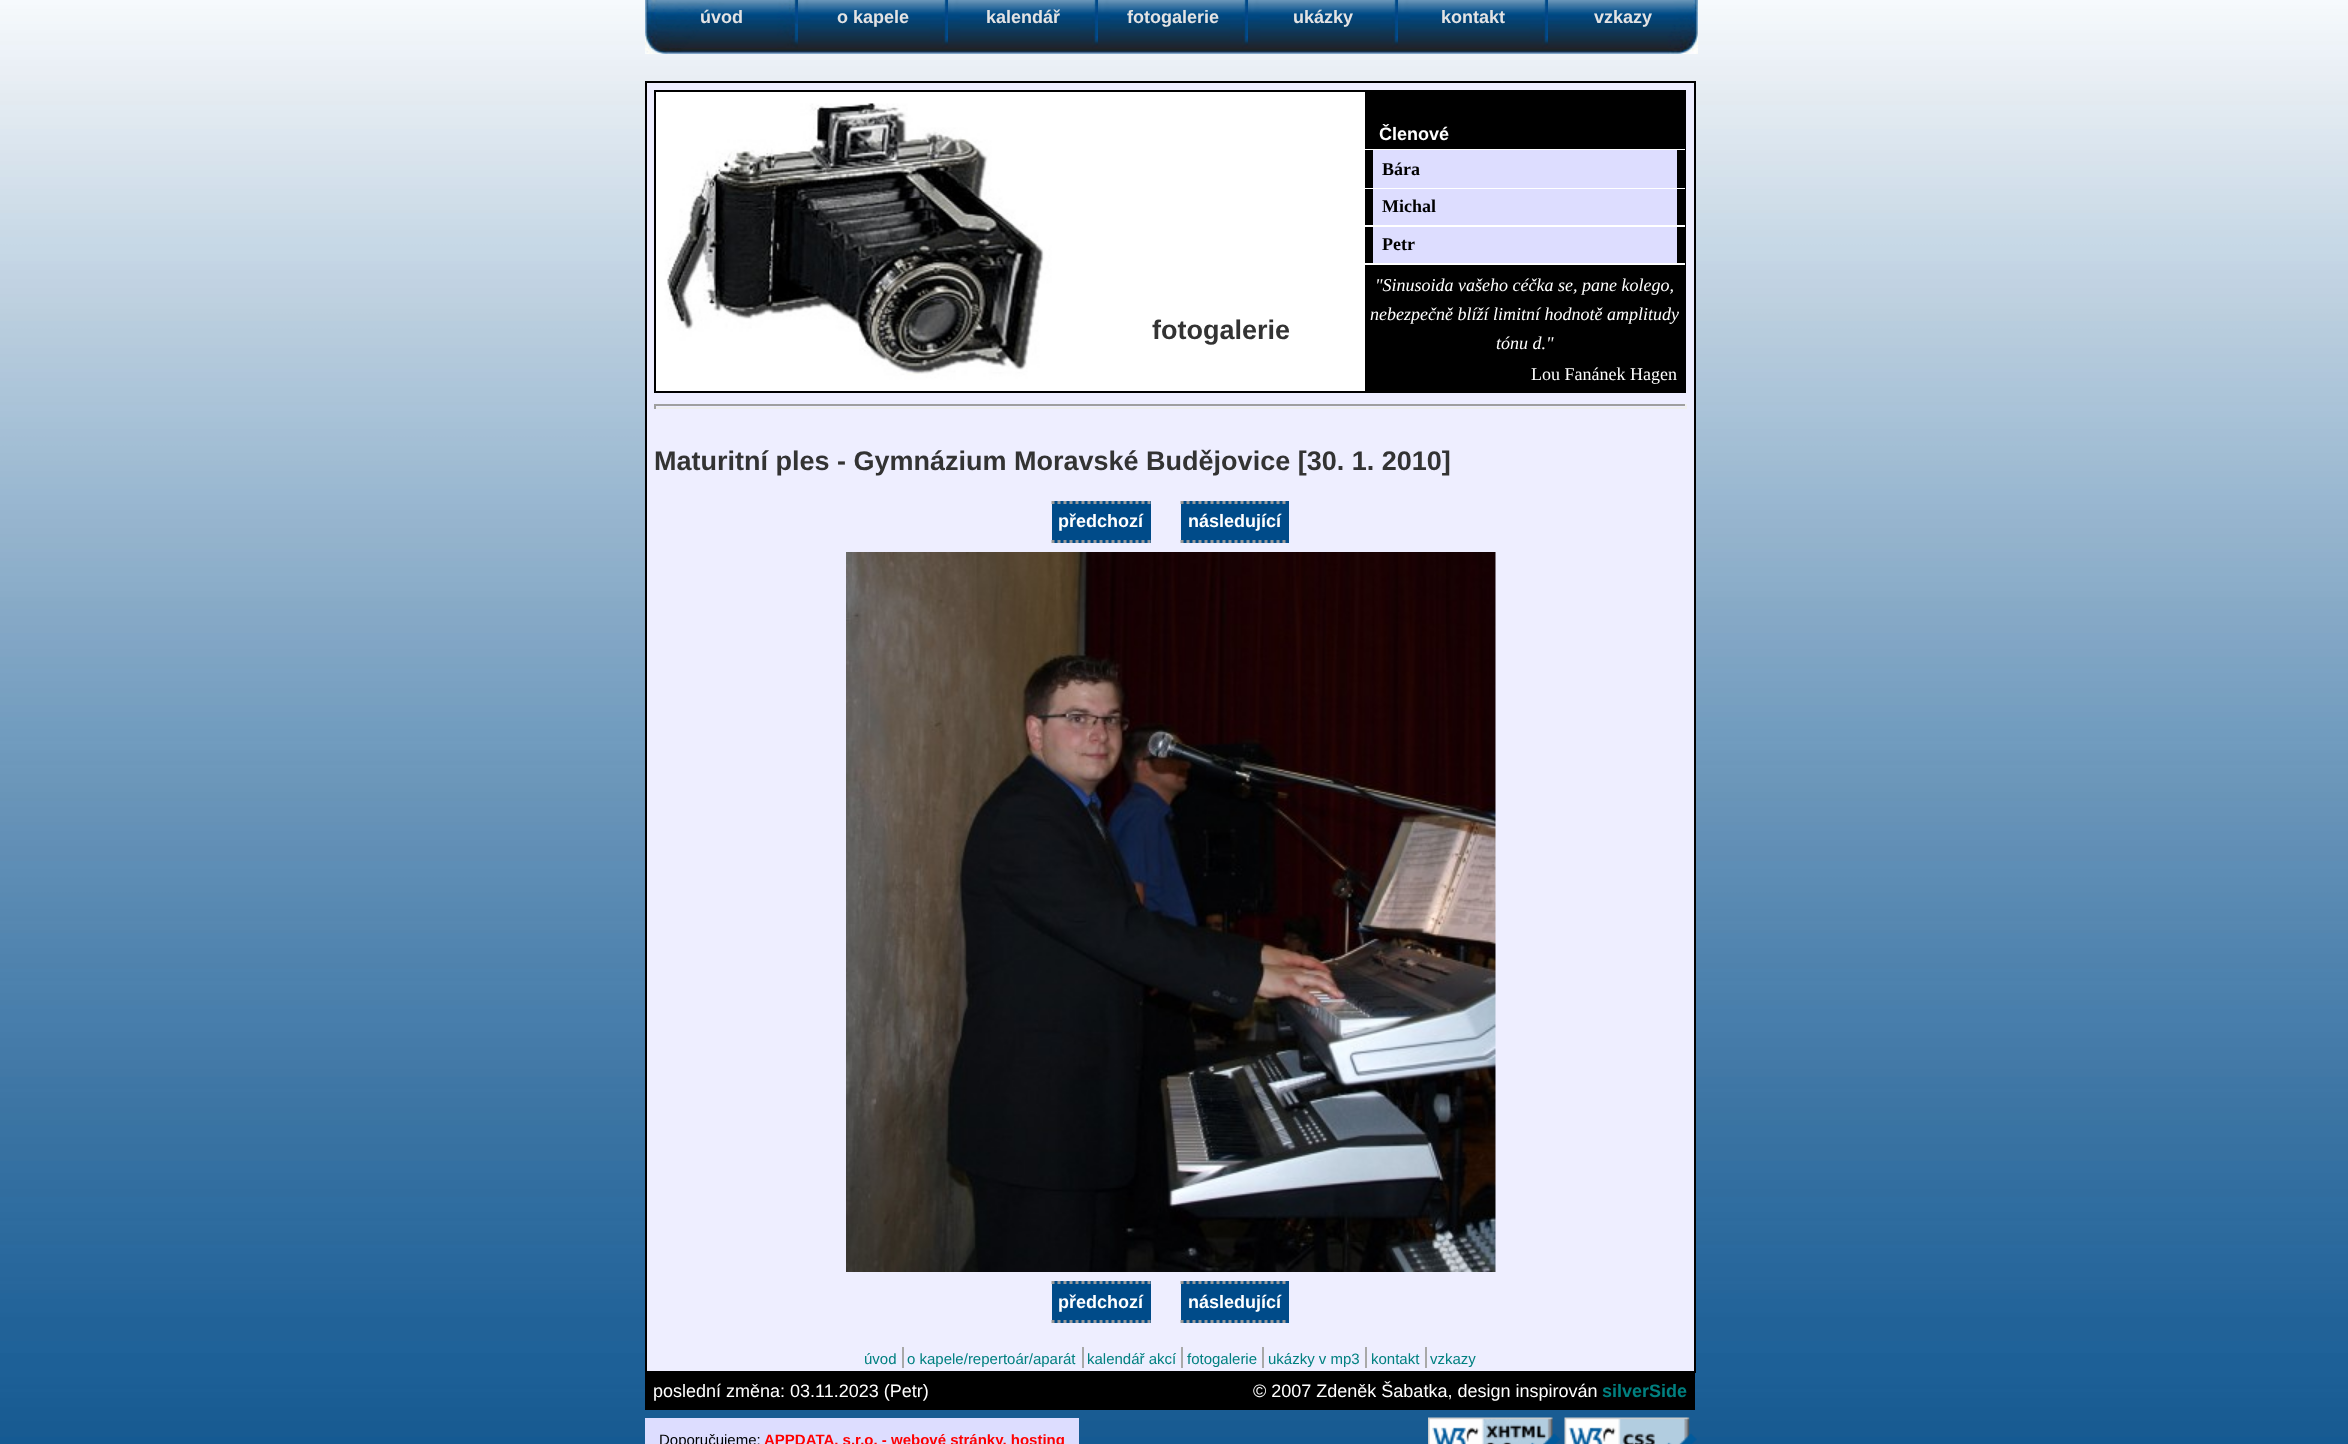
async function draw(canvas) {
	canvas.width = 2348;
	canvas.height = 1444;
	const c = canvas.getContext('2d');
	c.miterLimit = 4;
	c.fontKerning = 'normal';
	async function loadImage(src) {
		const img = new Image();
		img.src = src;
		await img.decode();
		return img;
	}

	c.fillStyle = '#fff';
	c.fillRect(0, 0, 2348, 1444);
	c.drawImage(await loadImage('img1.png'), 0, 0, 2348, 1444);
	c.drawImage(await loadImage('img2.png'), 645, 0, 1059, 1444);
	c.drawImage(await loadImage('img3.png'), 645, 0, 153, 54);
	c.font = 'bold 18px Liberation Sans';
	c.fillStyle = '#e3e3e3';
	c.fillText('úvod', 700, 23);
	c.drawImage(await loadImage('img4.png'), 798, 0, 150, 54);
	c.fillText('o kapele', 837, 23);
	c.drawImage(await loadImage('img4.png'), 948, 0, 150, 54);
	c.fillText('kalendář', 986, 23);
	c.drawImage(await loadImage('img5.png'), 1098, 0, 150, 54);
	c.fillText('fotogalerie', 1127, 23);
	c.drawImage(await loadImage('img5.png'), 1248, 0, 150, 54);
	c.fillText('ukázky', 1293, 23);
	c.drawImage(await loadImage('img4.png'), 1398, 0, 150, 54);
	c.fillText('kontakt', 1441, 23);
	c.drawImage(await loadImage('img6.png'), 1548, 0, 150, 54);
	c.fillText('vzkazy', 1594, 23);
	for (const [x, y, w, h, color] of [
		[645, 81, 1050, 2, '#000'],
		[1694, 81, 2, 1244, '#000'],
		[645, 81, 2, 1244, '#000'],
		[647, 83, 1047, 1288, '#eef'],
	]) {
		c.fillStyle = color;
		c.fillRect(x, y, w, h);
	}
	c.drawImage(await loadImage('img7.png'), 656, 92, 709, 299);
	c.strokeStyle = '#000';
	c.lineWidth = 2;
	c.strokeRect(655, 91, 1030, 301);
	c.font = 'bold 27px Liberation Sans';
	c.fillStyle = '#333';
	c.fillText('fotogalerie', 1152, 339);
	c.fillStyle = '#000';
	c.fillRect(1365, 92, 319, 299);
	c.fillStyle = '#fff';
	c.fillRect(1365, 149, 320, 1);
	c.font = 'bold 18px Liberation Sans';
	c.fillText('Členové', 1379, 140);
	c.fillRect(1365, 188, 320, 1);
	c.fillStyle = '#ddf';
	c.fillRect(1373, 150, 304, 38);
	c.font = 'bold 18px Liberation Serif';
	c.fillStyle = '#000';
	c.fillText('Bára', 1382, 175);
	c.fillStyle = '#fff';
	c.fillRect(1365, 225, 320, 2);
	c.fillStyle = '#ddf';
	c.fillRect(1373, 189, 304, 36);
	c.fillStyle = '#000';
	c.fillText('Michal', 1382, 212);
	c.fillStyle = '#fff';
	c.fillRect(1365, 263, 320, 2);
	c.fillStyle = '#ddf';
	c.fillRect(1373, 227, 304, 36);
	c.fillStyle = '#000';
	c.fillText('Petr', 1382, 250);
	c.font = 'italic 18px Liberation Serif';
	c.fillStyle = '#fff';
	for (const [text, x, y] of [
		['"Sinusoida vašeho céčka se, pane kolego,', 1375, 291],
		['nebezpečně blíží limitní hodnotě amplitudy', 1370, 320],
		['tónu d."', 1496, 349],
	]) {
		c.fillText(text, x, y);
	}
	c.font = '18px Liberation Serif';
	c.fillText('Lou Fanánek Hagen', 1531, 380);
	for (const [x, y, w, h, color] of [
		[654, 404, 1032, 2, '#9f9f9f'],
		[1685, 404, 2, 5, '#eee'],
		[654, 407, 1032, 2, '#eee'],
		[654, 404, 2, 5, '#9f9f9f'],
	]) {
		c.fillStyle = color;
		c.fillRect(x, y, w, h);
	}
	c.font = 'bold 27px Liberation Sans';
	c.fillStyle = '#333';
	c.fillText('Maturitní ples - Gymnázium Moravské Budějovice [30. 1. 2010]', 654, 470);
	c.fillStyle = '#004b89';
	c.fillRect(1052, 501, 99, 42);
	c.font = 'bold 18px Liberation Sans';
	c.fillStyle = '#fff';
	c.fillText('předchozí', 1058, 527);
	c.beginPath();
	c.moveTo(1051.5, 502.5);
	c.lineTo(1150.5, 502.5);
	c.strokeStyle = '#999';
	c.lineWidth = 3;
	c.setLineDash([3, 3]);
	c.stroke();
	c.beginPath();
	c.moveTo(1051.5, 541.5);
	c.lineTo(1150.5, 541.5);
	c.stroke();
	c.fillStyle = '#004b89';
	c.fillRect(1181, 501, 108, 42);
	c.fillStyle = '#fff';
	c.fillText('následující', 1188, 527);
	c.beginPath();
	c.moveTo(1180.5, 502.5);
	c.lineTo(1288.5, 502.5);
	c.stroke();
	c.beginPath();
	c.moveTo(1180.5, 541.5);
	c.lineTo(1288.5, 541.5);
	c.stroke();
	c.drawImage(await loadImage('img8.png'), 846, 552, 650, 720);
	c.fillStyle = '#004b89';
	c.fillRect(1052, 1281, 99, 42);
	c.fillStyle = '#fff';
	c.fillText('předchozí', 1058, 1308);
	c.beginPath();
	c.moveTo(1051.5, 1282.5);
	c.lineTo(1150.5, 1282.5);
	c.stroke();
	c.beginPath();
	c.moveTo(1051.5, 1321.5);
	c.lineTo(1150.5, 1321.5);
	c.stroke();
	c.fillStyle = '#004b89';
	c.fillRect(1181, 1281, 108, 42);
	c.fillStyle = '#fff';
	c.fillText('následující', 1188, 1308);
	c.beginPath();
	c.moveTo(1180.5, 1282.5);
	c.lineTo(1288.5, 1282.5);
	c.stroke();
	c.beginPath();
	c.moveTo(1180.5, 1321.5);
	c.lineTo(1288.5, 1321.5);
	c.stroke();
	for (const [x, y, w, h, color] of [
		[1694, 1325, 2, 48, '#000'],
		[645, 1371, 1050, 39, '#000'],
		[645, 1325, 2, 48, '#000'],
	]) {
		c.fillStyle = color;
		c.fillRect(x, y, w, h);
	}
	c.font = '15px Liberation Sans';
	c.fillStyle = '#008080';
	c.fillText('úvod', 864, 1364);
	c.fillText('o kapele/repertoár/aparát', 907, 1364);
	c.fillStyle = '#a9a9a9';
	c.fillRect(902, 1347, 2, 21);
	c.fillStyle = '#008080';
	c.fillText('kalendář akcí', 1087, 1364);
	c.fillStyle = '#a9a9a9';
	c.fillRect(1082, 1347, 2, 21);
	c.fillStyle = '#008080';
	c.fillText('fotogalerie', 1187, 1364);
	c.fillStyle = '#a9a9a9';
	c.fillRect(1181, 1347, 2, 21);
	c.fillStyle = '#008080';
	c.fillText('ukázky v mp3', 1268, 1364);
	c.fillStyle = '#a9a9a9';
	c.fillRect(1262, 1347, 2, 21);
	c.fillStyle = '#008080';
	c.fillText('kontakt', 1371, 1364);
	c.fillStyle = '#a9a9a9';
	c.fillRect(1365, 1347, 2, 21);
	c.fillStyle = '#008080';
	c.fillText('vzkazy', 1430, 1364);
	c.fillStyle = '#a9a9a9';
	c.fillRect(1425, 1347, 2, 21);
	c.font = '18px Liberation Sans';
	c.fillStyle = '#fff';
	c.fillText('poslední změna: 03.11.2023 (Petr)', 653, 1397);
	c.fillText('© 2007 Zdeněk Šabatka, design inspirován', 1253, 1397);
	c.font = 'bold 18px Liberation Sans';
	c.fillStyle = '#008080';
	c.fillText('silverSide', 1602, 1397);
	c.fillStyle = '#ddf';
	c.fillRect(645, 1418, 434, 26);
	c.font = '15px Liberation Sans';
	c.fillStyle = '#000';
	c.fillText('Doporučujeme:', 659, 1445);
	c.font = 'bold 15px Liberation Sans';
	c.fillStyle = '#f00';
	c.fillText('APPDATA, s.r.o. - webové stránky, hosting', 764, 1445);
	c.drawImage(await loadImage('img9.png'), 1428, 1417, 132, 27);
	c.drawImage(await loadImage('img10.png'), 1564, 1417, 133, 27);
}

draw(document.querySelector('canvas'));
